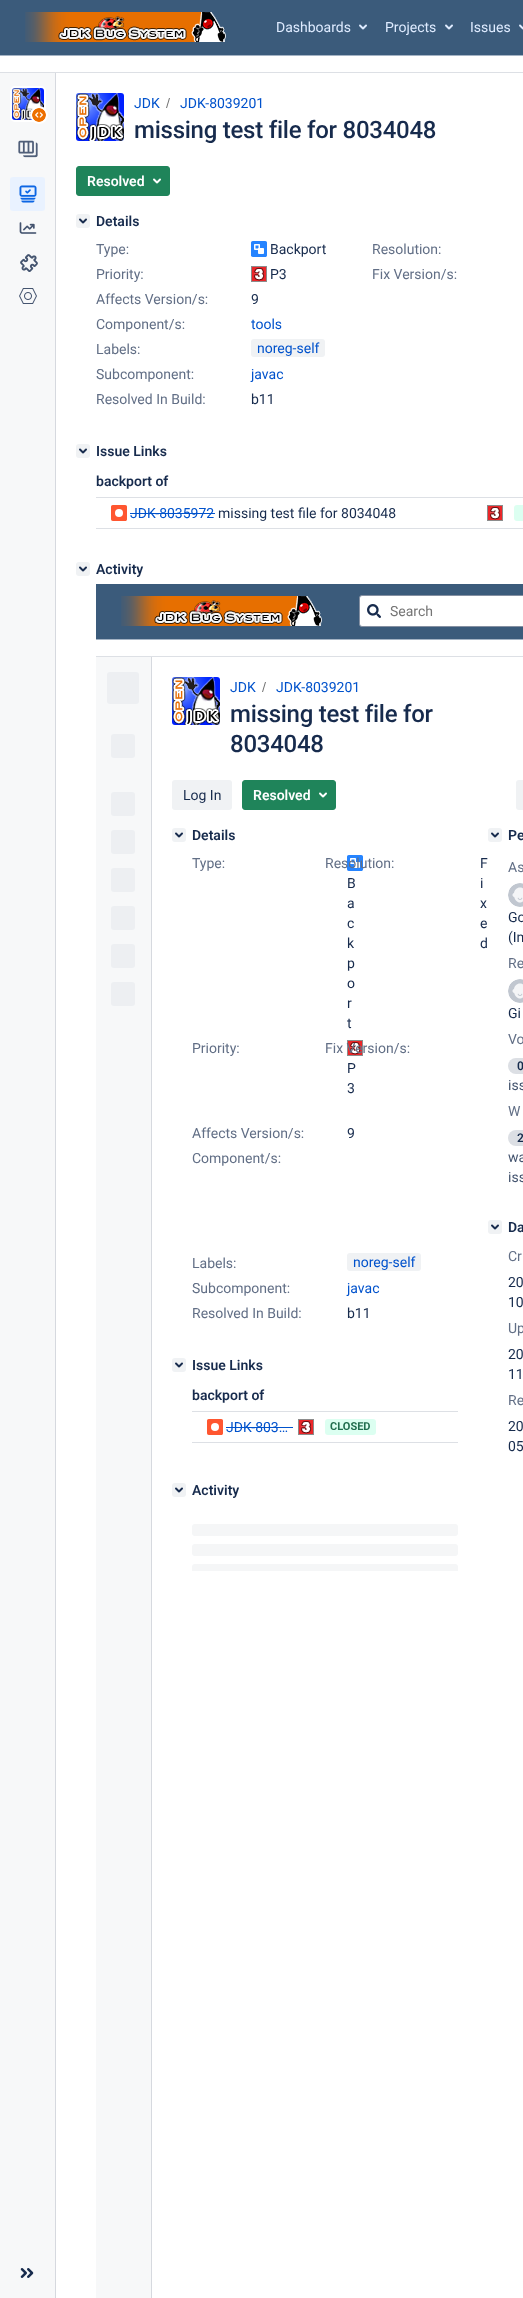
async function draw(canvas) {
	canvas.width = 523;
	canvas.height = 2298;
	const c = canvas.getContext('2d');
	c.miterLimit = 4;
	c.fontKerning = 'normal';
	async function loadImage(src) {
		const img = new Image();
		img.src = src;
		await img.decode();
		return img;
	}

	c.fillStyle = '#fff';
	c.fillRect(0, 0, 523, 2298);
	c.fillStyle = '#3b5b7b';
	c.fillRect(0, 0, 523, 55);
	c.fillStyle = '#a4b3c4';
	c.fillRect(0, 55, 523, 1);
	c.drawImage(await loadImage('img1.png'), 25, 12, 201, 30);
	c.font = '14px Roboto';
	c.fillStyle = '#deebff';
	c.fillText('Dashboards', 276, 32);
	c.drawImage(await loadImage('img2.png'), 359, 24, 8, 6);
	c.fillText('Projects', 385, 32);
	c.drawImage(await loadImage('img2.png'), 445, 24, 8, 6);
	c.fillText('Issues', 470, 32);
	c.drawImage(await loadImage('img3.png'), 519, 24, 4, 6);
	for (const [x, y, w, h, color] of [
		[0, 72, 523, 1, '#dde0e5'],
		[0, 73, 55, 2225, '#f7f8f9'],
		[55, 73, 1, 2225, '#d6d9df'],
	]) {
		c.fillStyle = color;
		c.fillRect(x, y, w, h);
	}
	c.beginPath();
	c.roundRect(11, 87, 34, 34, 4);
	c.strokeStyle = '#fff';
	c.lineWidth = 2;
	c.stroke();
	c.drawImage(await loadImage('img4.png'), 12, 88, 32, 32);
	c.fillStyle = '#fff';
	c.beginPath();
	c.arc(39, 115, 9, 0, 2 * Math.PI);
	c.fill();
	c.drawImage(await loadImage('img5.png'), 32, 108, 14, 14);
	c.drawImage(await loadImage('img6.png'), 18, 140, 20, 18);
	c.fillStyle = '#e9f2ff';
	c.beginPath();
	c.roundRect(10, 177, 35, 34, 3);
	c.fill();
	c.drawImage(await loadImage('img7.png'), 19, 185, 18, 18);
	c.drawImage(await loadImage('img8.png'), 19, 222, 18, 12);
	c.drawImage(await loadImage('img9.png'), 20, 254, 18, 18);
	c.drawImage(await loadImage('img10.png'), 19, 288, 18, 16);
	c.drawImage(await loadImage('img11.png'), 20, 2268, 14, 10);
	c.drawImage(await loadImage('img12.png'), 76, 93, 48, 48);
	c.fillStyle = '#0052cc';
	c.fillText('JDK', 134, 108);
	c.fillStyle = '#707070';
	c.beginPath();
	c.moveTo(167, 108);
	c.lineTo(170, 98);
	c.lineTo(169, 98);
	c.lineTo(166, 108);
	c.closePath();
	c.fill();
	c.fillStyle = '#0052cc';
	c.fillText('JDK-8039201', 180, 108);
	c.letterSpacing = '-0.25px';
	c.font = '500 24px Roboto';
	c.fillStyle = '#172b4d';
	c.fillText('missing test file for 8034048', 134, 138);
	c.fillStyle = '#1f845a';
	c.beginPath();
	c.roundRect(76.5, 166.5, 93, 29, 2.5);
	c.fill();
	c.strokeStyle = '#1f845a';
	c.lineWidth = 1;
	c.stroke();
	c.letterSpacing = '0px';
	c.font = '600 14px Roboto';
	c.fillStyle = '#fff';
	c.fillText('Resolved', 87, 186);
	c.drawImage(await loadImage('img13.png'), 153, 178, 8, 6);
	c.fillStyle = '#f0f2f4';
	c.beginPath();
	c.roundRect(76, 214, 14, 14, 3);
	c.fill();
	c.drawImage(await loadImage('img14.png'), 79, 218, 8, 6);
	c.fillStyle = '#172b4d';
	c.fillText('Details', 96, 226);
	c.font = '14px Roboto';
	c.fillStyle = '#626f86';
	c.fillText('Type:', 96, 254);
	c.drawImage(await loadImage('img15.png'), 251, 241, 16, 16);
	c.fillStyle = '#172b4d';
	c.fillText('Backport', 270, 254);
	c.fillStyle = '#626f86';
	c.fillText('Resolution:', 372, 254);
	c.fillText('Priority:', 96, 279);
	c.drawImage(await loadImage('img16.png'), 251, 266, 16, 16);
	c.fillStyle = '#172b4d';
	c.fillText('P3', 270, 279);
	c.fillStyle = '#626f86';
	c.fillText('Fix Version/s:', 372, 279);
	c.fillText('Affects Version/s:', 96, 304);
	c.fillStyle = '#172b4d';
	c.fillText('9', 251, 304);
	c.fillStyle = '#626f86';
	c.fillText('Component/s:', 96, 329);
	c.fillStyle = '#0052cc';
	c.fillText('tools', 251, 329);
	c.fillStyle = '#626f86';
	c.fillText('Labels:', 96, 354);
	c.fillStyle = '#f0f2f4';
	c.beginPath();
	c.roundRect(251, 339, 74, 18, 3);
	c.fill();
	c.fillStyle = '#0052cc';
	c.fillText('noreg-self', 257, 353);
	c.fillStyle = '#626f86';
	c.fillText('Subcomponent:', 96, 379);
	c.fillStyle = '#0052cc';
	c.fillText('javac', 251, 379);
	c.fillStyle = '#626f86';
	c.fillText('Resolved In Build:', 96, 404);
	c.fillStyle = '#172b4d';
	c.fillText('b11', 251, 404);
	c.fillStyle = '#f0f2f4';
	c.beginPath();
	c.roundRect(76, 444, 14, 14, 3);
	c.fill();
	c.drawImage(await loadImage('img14.png'), 79, 448, 8, 6);
	c.font = '600 14px Roboto';
	c.fillStyle = '#172b4d';
	c.fillText('Issue Links', 96, 456);
	c.fillText('backport of', 96, 486);
	c.fillStyle = '#dde0e5';
	c.fillRect(96, 497, 427, 1);
	c.fillRect(96, 528, 427, 1);
	c.drawImage(await loadImage('img17.png'), 111, 505, 16, 16);
	c.font = '14px Roboto';
	c.fillStyle = '#0052cc';
	c.fillText('JDK-8035972', 130, 518);
	c.fillRect(130, 513, 85, 1);
	c.fillStyle = '#172b4d';
	c.fillText('missing test file for 8034048', 218, 518);
	c.drawImage(await loadImage('img16.png'), 487, 505, 16, 16);
	c.fillStyle = '#dcfff1';
	c.beginPath();
	c.roundRect(514, 505, 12, 16, 3);
	c.fill();
	c.fillStyle = '#f0f2f4';
	c.beginPath();
	c.roundRect(76, 562, 14, 14, 3);
	c.fill();
	c.drawImage(await loadImage('img14.png'), 79, 566, 8, 6);
	c.font = '600 14px Roboto';
	c.fillStyle = '#172b4d';
	c.fillText('Activity', 96, 574);
	c.fillStyle = '#3b5b7b';
	c.fillRect(96, 584, 427, 55);
	c.fillStyle = '#a4b3c4';
	c.fillRect(96, 639, 427, 1);
	c.drawImage(await loadImage('img1.png'), 121, 596, 201, 30);
	c.fillStyle = '#fff';
	c.beginPath();
	c.roundRect(359.5, 595.5, 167, 31, 2.5);
	c.fill();
	c.strokeStyle = '#8590a2';
	c.stroke();
	c.drawImage(await loadImage('img18.png'), 367, 604, 14, 14);
	c.font = '14px Roboto';
	c.fillStyle = '#757575';
	c.fillText('Search', 390, 616);
	for (const [x, y, w, h, color] of [
		[96, 656, 427, 1, '#dde0e5'],
		[96, 657, 55, 1641, '#f7f8f9'],
		[151, 657, 1, 1641, '#d6d9df'],
	]) {
		c.fillStyle = color;
		c.fillRect(x, y, w, h);
	}
	c.fillStyle = '#edeff2';
	c.beginPath();
	c.roundRect(107, 672, 32, 32, 3);
	c.fill();
	c.beginPath();
	c.roundRect(111, 734, 24, 24, 3);
	c.fill();
	c.beginPath();
	c.roundRect(111, 792, 24, 24, 3);
	c.fill();
	c.beginPath();
	c.roundRect(111, 830, 24, 24, 3);
	c.fill();
	c.beginPath();
	c.roundRect(111, 868, 24, 24, 3);
	c.fill();
	c.beginPath();
	c.roundRect(111, 906, 24, 24, 3);
	c.fill();
	c.beginPath();
	c.roundRect(111, 944, 24, 24, 3);
	c.fill();
	c.beginPath();
	c.roundRect(111, 982, 24, 24, 3);
	c.fill();
	c.drawImage(await loadImage('img12.png'), 172, 677, 48, 48);
	c.fillStyle = '#0052cc';
	c.fillText('JDK', 230, 692);
	c.fillStyle = '#707070';
	c.beginPath();
	c.moveTo(263, 692);
	c.lineTo(266, 682);
	c.lineTo(265, 682);
	c.lineTo(262, 692);
	c.closePath();
	c.fill();
	c.fillStyle = '#0052cc';
	c.fillText('JDK-8039201', 276, 692);
	c.letterSpacing = '-0.25px';
	c.font = '500 24px Roboto';
	c.fillStyle = '#172b4d';
	c.fillText('missing test file for', 230, 722);
	c.fillText('8034048', 230, 752);
	c.fillStyle = '#f0f2f4';
	c.beginPath();
	c.roundRect(172, 780, 60, 30, 3);
	c.fill();
	c.letterSpacing = '0px';
	c.font = '14px Roboto';
	c.fillStyle = '#172b4d';
	c.fillText('Log In', 183, 800);
	c.fillStyle = '#1f845a';
	c.beginPath();
	c.roundRect(242.5, 780.5, 93, 29, 2.5);
	c.fill();
	c.strokeStyle = '#1f845a';
	c.stroke();
	c.font = '600 14px Roboto';
	c.fillStyle = '#fff';
	c.fillText('Resolved', 253, 800);
	c.drawImage(await loadImage('img13.png'), 319, 792, 8, 6);
	c.fillStyle = '#f0f2f4';
	c.beginPath();
	c.roundRect(516, 780, 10, 30, 3);
	c.fill();
	c.beginPath();
	c.roundRect(172, 828, 14, 14, 3);
	c.fill();
	c.drawImage(await loadImage('img14.png'), 175, 832, 8, 6);
	c.fillStyle = '#172b4d';
	c.fillText('Details', 192, 840);
	c.font = '14px Roboto';
	c.fillStyle = '#626f86';
	c.fillText('Type:', 192, 868);
	c.drawImage(await loadImage('img19.png'), 347, 855, 16, 16);
	c.fillStyle = '#172b4d';
	for (const [text, x, y] of [
		['B', 347, 888],
		['a', 347, 908],
		['c', 347, 928],
		['k', 347, 948],
		['p', 347, 968],
		['o', 347, 988],
		['r', 347, 1008],
		['t', 347, 1028],
	]) {
		c.fillText(text, x, y);
	}
	c.fillStyle = '#626f86';
	c.fillText('Resolution:', 325, 868);
	c.fillStyle = '#172b4d';
	for (const [text, x, y] of [
		['F', 480, 868],
		['i', 480, 888],
		['x', 480, 908],
		['e', 480, 928],
		['d', 480, 948],
	]) {
		c.fillText(text, x, y);
	}
	c.fillStyle = '#626f86';
	c.fillText('Priority:', 192, 1053);
	c.drawImage(await loadImage('img16.png'), 347, 1040, 16, 16);
	c.fillStyle = '#172b4d';
	c.fillText('P', 347, 1073);
	c.fillText('3', 347, 1093);
	c.fillStyle = '#626f86';
	c.fillText('Fix Version/s:', 325, 1053);
	c.fillText('Affects Version/s:', 192, 1138);
	c.fillStyle = '#172b4d';
	c.fillText('9', 347, 1138);
	c.fillStyle = '#626f86';
	c.fillText('Component/s:', 192, 1163);
	c.fillText('Labels:', 192, 1268);
	c.fillStyle = '#f0f2f4';
	c.beginPath();
	c.roundRect(347, 1253, 74, 18, 3);
	c.fill();
	c.fillStyle = '#0052cc';
	c.fillText('noreg-self', 353, 1267);
	c.fillStyle = '#626f86';
	c.fillText('Subcomponent:', 192, 1293);
	c.fillStyle = '#0052cc';
	c.fillText('javac', 347, 1293);
	c.fillStyle = '#626f86';
	c.fillText('Resolved In Build:', 192, 1318);
	c.fillStyle = '#172b4d';
	c.fillText('b11', 347, 1318);
	c.fillStyle = '#f0f2f4';
	c.beginPath();
	c.roundRect(172, 1358, 14, 14, 3);
	c.fill();
	c.drawImage(await loadImage('img14.png'), 175, 1362, 8, 6);
	c.font = '600 14px Roboto';
	c.fillStyle = '#172b4d';
	c.fillText('Issue Links', 192, 1370);
	c.fillText('backport of', 192, 1400);
	c.fillStyle = '#dde0e5';
	c.fillRect(192, 1411, 266, 1);
	c.fillRect(192, 1442, 266, 1);
	c.drawImage(await loadImage('img17.png'), 207, 1419, 16, 16);
	c.font = '14px Roboto';
	c.fillStyle = '#0052cc';
	c.fillText('JDK-803…', 226, 1432);
	c.fillRect(226, 1427, 67, 1);
	c.drawImage(await loadImage('img16.png'), 298, 1419, 16, 16);
	c.fillStyle = '#dcfff1';
	c.beginPath();
	c.roundRect(325, 1419, 51, 16, 3);
	c.fill();
	c.font = 'bold 11px Roboto';
	c.fillStyle = '#216e4e';
	c.fillText('CLOSED', 330, 1430);
	c.fillStyle = '#f0f2f4';
	c.beginPath();
	c.roundRect(172, 1483, 14, 14, 3);
	c.fill();
	c.drawImage(await loadImage('img14.png'), 175, 1487, 8, 6);
	c.font = '600 14px Roboto';
	c.fillStyle = '#172b4d';
	c.fillText('Activity', 192, 1495);
	c.fillStyle = '#f5f6f7';
	c.beginPath();
	c.roundRect(192, 1524, 266, 12, 3);
	c.fill();
	c.beginPath();
	c.roundRect(192, 1544, 266, 12, 3);
	c.fill();
	c.beginPath();
	c.roundRect(192, 1564, 266, 7, [3, 3, 0, 0]);
	c.fill();
	c.fillStyle = '#f0f2f4';
	c.beginPath();
	c.roundRect(488, 828, 14, 14, 3);
	c.fill();
	c.drawImage(await loadImage('img14.png'), 491, 832, 8, 6);
	c.fillStyle = '#172b4d';
	c.fillText('Pe', 508, 840);
	c.font = '14px Roboto';
	c.fillStyle = '#626f86';
	c.fillText('As', 508, 872);
	c.drawImage(await loadImage('img20.png'), 508, 883, 15, 24);
	c.fillStyle = '#172b4d';
	c.fillText('Go', 508, 922);
	c.fillText('(In', 508, 942);
	c.fillStyle = '#626f86';
	c.fillText('Re', 508, 968);
	c.drawImage(await loadImage('img20.png'), 508, 979, 15, 24);
	c.fillStyle = '#172b4d';
	c.fillText('Gi', 508, 1018);
	c.fillStyle = '#626f86';
	c.fillText('Vo', 508, 1044);
	c.fillStyle = '#dcdfe4';
	c.beginPath();
	c.roundRect(508, 1058, 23, 16, 8);
	c.fill();
	c.font = '600 12px Roboto';
	c.fillStyle = '#172b4d';
	c.fillText('0', 517, 1070);
	c.font = '14px Roboto';
	c.fillStyle = '#44546f';
	c.fillText('iss', 508, 1090);
	c.fillStyle = '#626f86';
	c.fillText('W', 508, 1116);
	c.fillStyle = '#dcdfe4';
	c.beginPath();
	c.roundRect(508, 1130, 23, 16, 8);
	c.fill();
	c.font = '600 12px Roboto';
	c.fillStyle = '#172b4d';
	c.fillText('2', 517, 1142);
	c.font = '14px Roboto';
	c.fillStyle = '#44546f';
	c.fillText('wa', 508, 1162);
	c.fillText('iss', 508, 1182);
	c.fillStyle = '#f0f2f4';
	c.beginPath();
	c.roundRect(488, 1220, 14, 14, 3);
	c.fill();
	c.drawImage(await loadImage('img14.png'), 491, 1224, 8, 6);
	c.font = '600 14px Roboto';
	c.fillStyle = '#172b4d';
	c.fillText('Da', 508, 1232);
	c.font = '14px Roboto';
	c.fillStyle = '#626f86';
	c.fillText('Cr', 508, 1261);
	c.fillStyle = '#172b4d';
	c.fillText('20', 508, 1287);
	c.fillText('10', 508, 1307);
	c.fillStyle = '#626f86';
	c.fillText('Up', 508, 1333);
	c.fillStyle = '#172b4d';
	c.fillText('20', 508, 1359);
	c.fillText('11', 508, 1379);
	c.fillStyle = '#626f86';
	c.fillText('Re', 508, 1405);
	c.fillStyle = '#172b4d';
	c.fillText('20', 508, 1431);
	c.fillText('05', 508, 1451);
}

draw(document.querySelector('canvas'));
